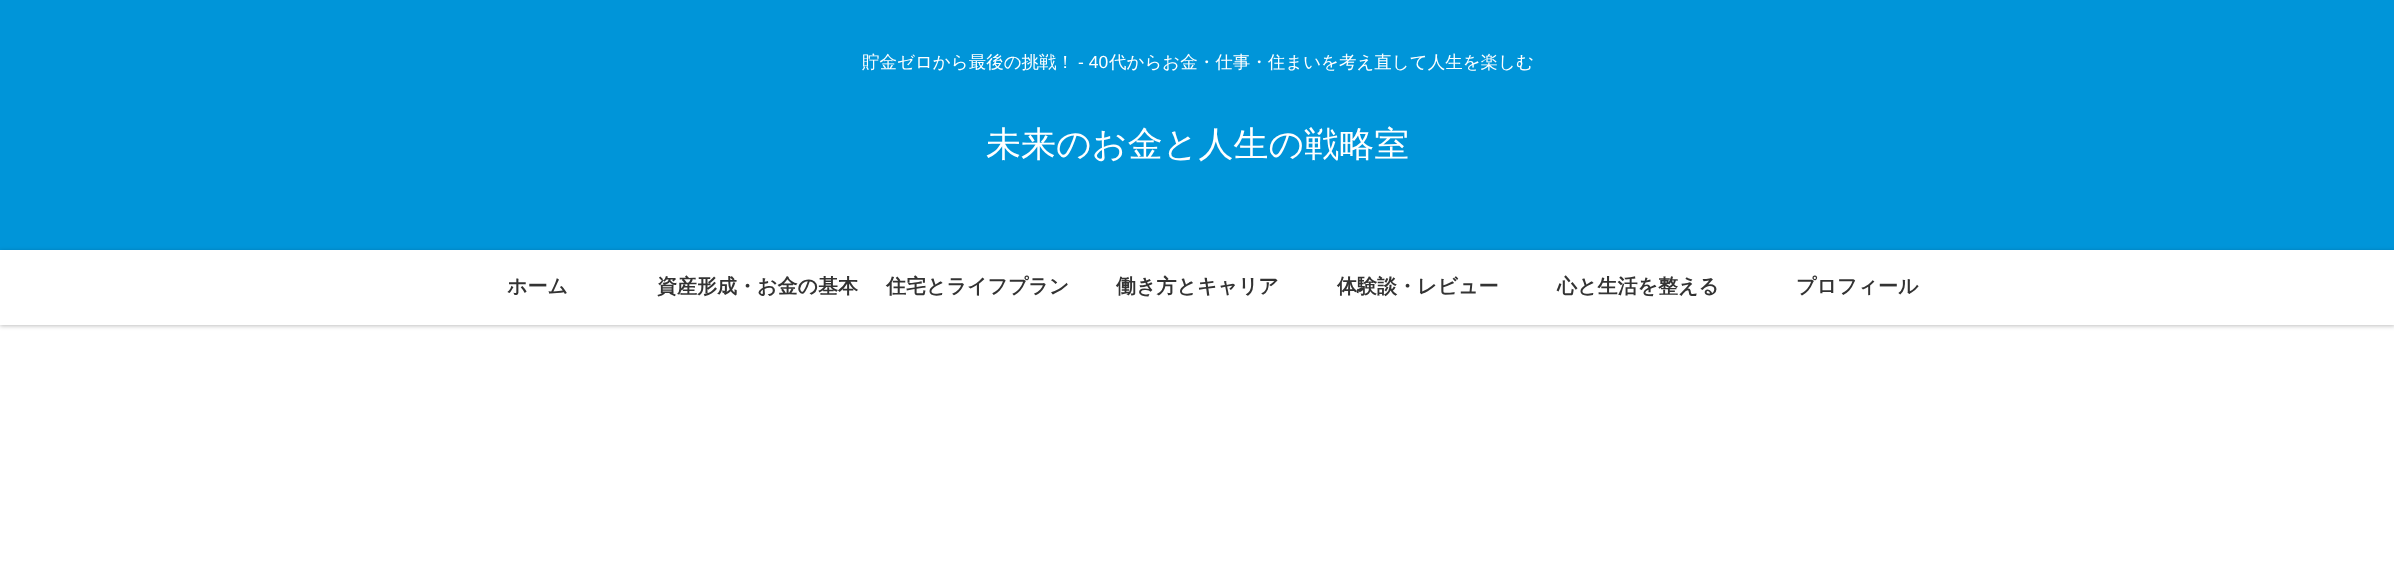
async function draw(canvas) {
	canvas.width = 2394;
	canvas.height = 579;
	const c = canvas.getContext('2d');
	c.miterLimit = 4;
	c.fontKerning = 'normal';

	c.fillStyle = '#fff';
	c.fillRect(0, 0, 2394, 579);
	c.fillStyle = '#0095d9';
	c.fillRect(0, 0, 2394, 250);
	c.font = '500 17.5px WenQuanYi Zen Hei';
	c.fillStyle = '#fff';
	c.fillText('貯金ゼロから最後の挑戦！', 862, 68);
	c.font = '17.5px Liberation Sans';
	c.fillText('- 40', 1078, 68);
	c.font = '500 17.5px WenQuanYi Zen Hei';
	c.fillText('代からお金・仕事・住まいを考え直して人生を楽しむ', 1109, 68);
	c.font = '500 35px WenQuanYi Zen Hei';
	c.fillText('未来のお金と人生の戦略室', 986, 156);
	c.save();
	c.beginPath();
	c.moveTo(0, 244);
	c.lineTo(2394, 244);
	c.lineTo(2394, 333);
	c.lineTo(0, 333);
	c.closePath();
	c.moveTo(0, 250);
	c.lineTo(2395, 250);
	c.lineTo(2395, 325);
	c.lineTo(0, 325);
	c.closePath();
	c.clip('evenodd');
	c.fillStyle = '#00000040';
	c.filter = 'blur(2px)';
	c.beginPath();
	c.rect(0, 251, 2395, 75);
	c.fill();
	c.filter = 'none';
	c.restore();
	c.font = 'bold 20px WenQuanYi Zen Hei';
	c.fillStyle = '#333';
	for (const [text, x, y] of [
		['ホーム', 507, 293],
		['資産形成・お金の基本', 657, 293],
		['住宅とライフプラン', 886, 293],
		['働き方とキャリア', 1116, 293],
		['体験談・レビュー', 1337, 293],
		['心と生活を整える', 1557, 293],
		['プロフィール', 1796, 293],
	]) {
		c.fillText(text, x, y);
	}
}

draw(document.querySelector('canvas'));
